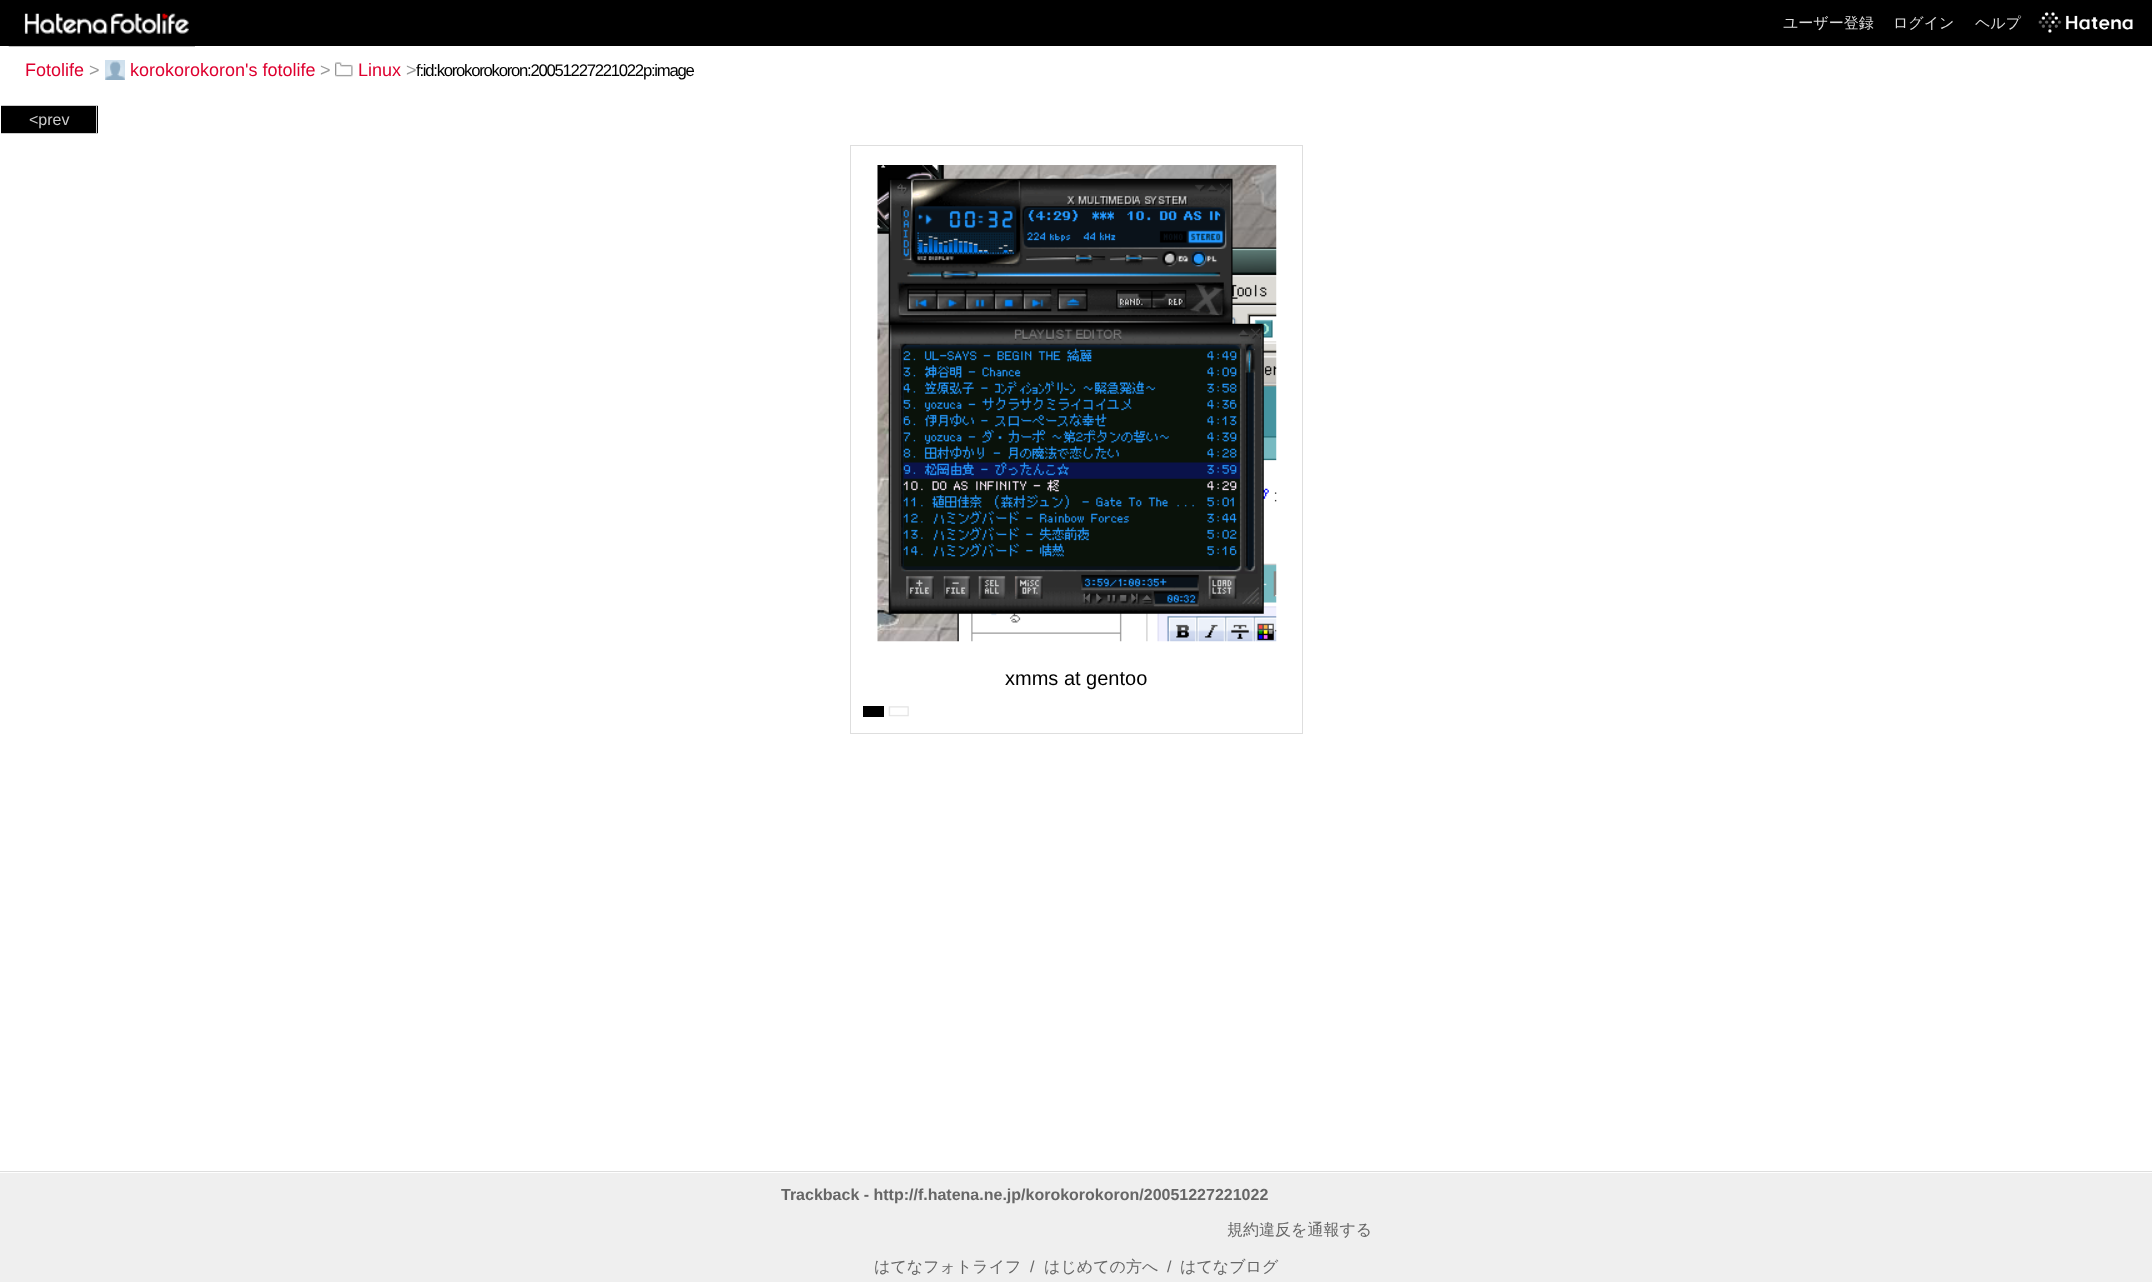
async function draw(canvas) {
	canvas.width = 2152;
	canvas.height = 1282;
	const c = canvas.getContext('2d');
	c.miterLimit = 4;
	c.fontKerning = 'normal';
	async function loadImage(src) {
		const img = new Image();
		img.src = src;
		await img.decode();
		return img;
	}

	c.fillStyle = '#efefef';
	c.fillRect(0, 0, 2152, 1282);
	c.fillStyle = '#000';
	c.fillRect(0, 0, 2152, 46);
	c.fillStyle = '#fff';
	c.fillRect(0, 46, 2152, 1127);
	c.drawImage(await loadImage('img1.png'), 8, 13, 104, 34);
	c.drawImage(await loadImage('img2.png'), 111, 13, 84, 34);
	c.font = '500 15px WenQuanYi Zen Hei';
	c.fillStyle = '#ddd';
	for (const [text, x, y] of [
		['ユーザー登録', 1783, 28],
		['ログイン', 1893, 28],
		['ヘルプ', 1975, 28],
	]) {
		c.fillText(text, x, y);
	}
	c.drawImage(await loadImage('img3.png'), 2038, 12, 95, 21);
	c.font = '18px Liberation Sans';
	c.fillStyle = '#de002f';
	c.fillText('Fotolife', 25, 76);
	c.fillStyle = '#999';
	c.fillText('>', 89, 76);
	c.drawImage(await loadImage('img4.png'), 105, 60, 20, 20);
	c.fillStyle = '#de002f';
	c.fillText('korokorokoron\'s fotolife', 130, 76);
	c.fillStyle = '#999';
	c.fillText('>', 320, 76);
	c.drawImage(await loadImage('img5.png'), 335, 62, 18, 15);
	c.fillStyle = '#de002f';
	c.fillText('Linux', 358, 76);
	c.fillStyle = '#999';
	c.fillText('>', 406, 76);
	c.letterSpacing = '-1.25px';
	c.font = '16.7px Liberation Sans';
	c.fillStyle = '#000';
	c.fillText('f:id:korokorokoron:20051227221022p:image', 416, 76);
	for (const [x, y, w, h, color] of [
		[0, 1171, 2152, 1, '#dedede'],
		[1, 106, 97, 27, '#000'],
		[1, 105, 97, 1, '#ccc'],
		[96, 105, 1, 29, '#ccc'],
		[1, 133, 97, 1, '#ccc'],
	]) {
		c.fillStyle = color;
		c.fillRect(x, y, w, h);
	}
	c.letterSpacing = '0px';
	c.font = '16px Liberation Sans';
	c.fillText('<prev', 29, 125);
	c.strokeStyle = '#dedede';
	c.strokeRect(850.5, 145.5, 452, 588);
	c.drawImage(await loadImage('img6.png'), 877, 165, 400, 477);
	c.font = '20px Liberation Sans';
	c.fillStyle = '#000';
	c.fillText('xmms at gentoo', 1005, 685);
	c.fillRect(863, 706, 21, 11);
	c.drawImage(await loadImage('img7.png'), 888, 706, 21, 11);
	c.font = 'bold 16px Liberation Sans';
	c.fillStyle = '#666';
	c.fillText('Trackback - http://f.hatena.ne.jp/korokorokoron/20051227221022', 781, 1200);
	c.font = '500 16px WenQuanYi Zen Hei';
	c.fillText('規約違反を通報する', 1227, 1235);
	c.fillText('はてなフォトライフ', 874, 1272);
	c.font = '16px Liberation Sans';
	c.fillText('/', 1030, 1272);
	c.font = '500 16px WenQuanYi Zen Hei';
	c.fillText('はじめての方へ', 1044, 1272);
	c.font = '16px Liberation Sans';
	c.fillText('/', 1167, 1272);
	c.font = '500 16px WenQuanYi Zen Hei';
	c.fillText('はてなブログ', 1180, 1272);
}

draw(document.querySelector('canvas'));
